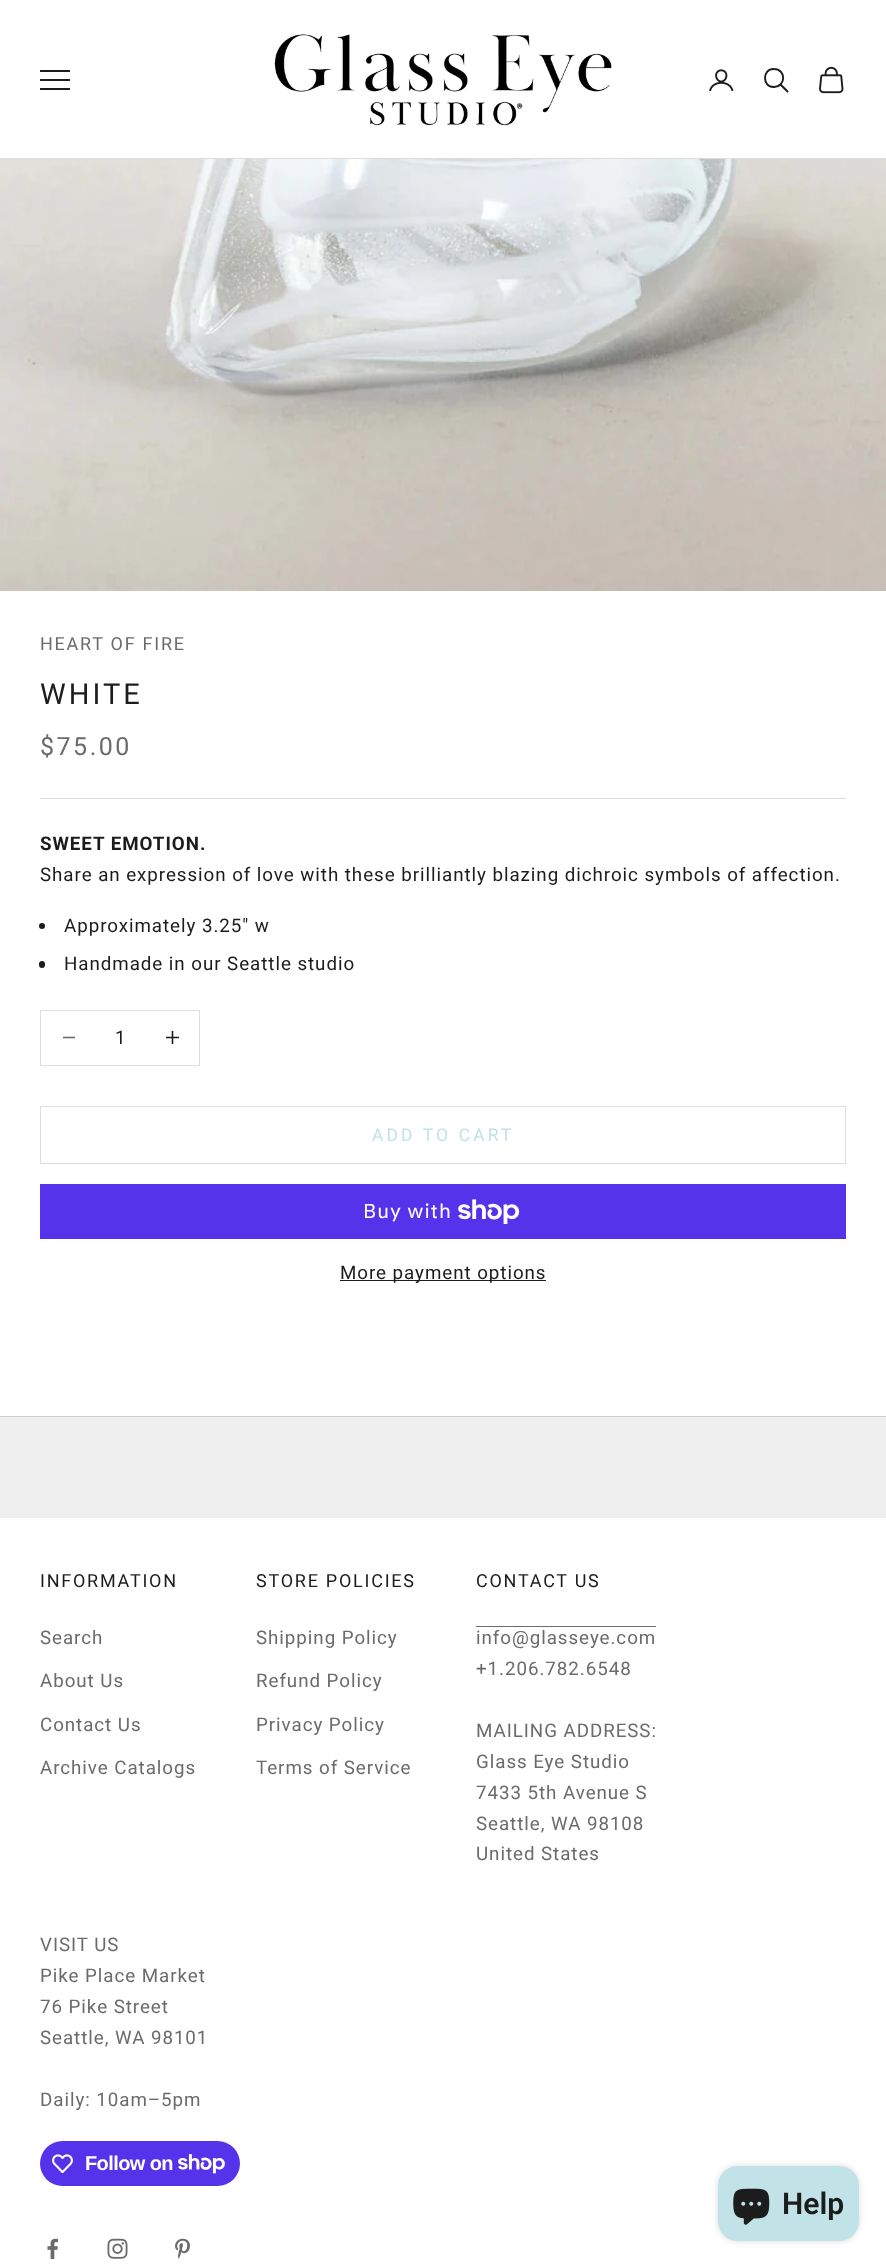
async function draw(canvas) {
	canvas.width = 886;
	canvas.height = 2267;
	const c = canvas.getContext('2d');
	c.miterLimit = 4;
	c.fontKerning = 'normal';
	async function loadImage(src) {
		const img = new Image();
		img.src = src;
		await img.decode();
		return img;
	}

	c.fillStyle = '#efefef';
	c.fillRect(0, 0, 886, 2267);
	c.fillStyle = '#fff';
	c.fillRect(0, 0, 886, 158);
	c.fillStyle = '#ddd';
	c.fillRect(0, 158, 886, 1);
	c.beginPath();
	c.moveTo(41, 89);
	c.lineTo(69, 89);
	c.moveTo(41, 80);
	c.lineTo(69, 80);
	c.moveTo(41, 71);
	c.lineTo(69, 71);
	c.strokeStyle = '#1c1c1c';
	c.lineWidth = 1.9;
	c.lineCap = 'square';
	c.stroke();
	c.drawImage(await loadImage('img1.png'), 274, 34, 338, 92);
	c.drawImage(await loadImage('img2.png'), 709, 69, 25, 23);
	c.beginPath();
	c.moveTo(774, 69);
	c.bezierCurveTo(762, 68.5, 762, 87.5, 774, 87);
	c.bezierCurveTo(786.5, 86.5, 786, 69, 774, 69);
	c.closePath();
	c.lineCap = 'butt';
	c.stroke();
	c.beginPath();
	c.moveTo(781, 85);
	c.lineTo(787.5, 91.5);
	c.lineCap = 'round';
	c.stroke();
	c.drawImage(await loadImage('img3.png'), 819, 66, 25, 28);
	c.fillStyle = '#fff';
	c.fillRect(0, 591, 886, 825);
	c.drawImage(await loadImage('img4.png'), 0, 159, 886, 432);
	c.letterSpacing = '1.75px';
	c.font = '18px Roboto';
	c.fillStyle = '#6b6b6b';
	c.fillText('HEART OF FIRE', 40, 650);
	c.letterSpacing = '3px';
	c.font = '29px Roboto';
	c.fillStyle = '#1c1c1c';
	c.fillText('WHITE', 40, 704);
	c.letterSpacing = '2.5px';
	c.font = '25px Roboto';
	c.fillStyle = '#6b6b6b';
	c.fillText('$75.00', 40, 755);
	c.fillStyle = '#ddd';
	c.fillRect(40, 798, 806, 1);
	c.letterSpacing = '0.95px';
	c.font = 'bold 18.75px Roboto';
	c.fillStyle = '#1c1c1c';
	c.fillText('SWEET EMOTION.', 40, 850);
	c.font = '18.75px Roboto';
	c.fillText('Share an expression of love with these brilliantly blazing dichroic symbols of affection.', 40, 881);
	c.beginPath();
	c.arc(42, 926, 3, 0, 2 * Math.PI);
	c.fill();
	c.fillText('Approximately 3.25" w', 64, 932);
	c.beginPath();
	c.roundRect(39, 961, 6, 7, 3);
	c.fill();
	c.fillText('Handmade in our Seattle studio', 64, 970);
	c.strokeStyle = '#ddd';
	c.lineWidth = 1;
	c.strokeRect(40.5, 1010.5, 159, 55);
	c.save();
	c.beginPath();
	c.rect(63, 1031, 12, 13);
	c.clip();
	c.beginPath();
	c.moveTo(62.5, 1037.5);
	c.lineTo(75, 1037.5);
	c.strokeStyle = '#6b6b6b';
	c.lineWidth = 1.6;
	c.lineCap = 'butt';
	c.stroke();
	c.restore();
	c.letterSpacing = '0px';
	c.fillText('1', 115, 1044);
	c.beginPath();
	c.moveTo(172.5, 1031);
	c.lineTo(172.5, 1044);
	c.moveTo(166, 1037.5);
	c.lineTo(179, 1037.5);
	c.strokeStyle = '#1c1c1c';
	c.lineWidth = 1.6;
	c.lineCap = 'butt';
	c.stroke();
	c.strokeStyle = '#ddd';
	c.lineWidth = 1;
	c.strokeRect(40.5, 1106.5, 805, 57);
	c.letterSpacing = '3.1px';
	c.font = '17.5px Roboto';
	c.fillStyle = '#c1e2e7';
	c.fillText('ADD TO CART', 372, 1141);
	c.fillStyle = '#5433eb';
	c.fillRect(40, 1184, 806, 55);
	c.letterSpacing = '0.95px';
	c.font = '20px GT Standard';
	c.fillStyle = '#fff';
	c.fillText('Buy with', 363, 1218);
	c.drawImage(await loadImage('img5.png'), 458, 1199, 62, 25);
	c.fillStyle = '#1c1c1c';
	c.fillRect(340, 1280, 206, 1);
	c.font = '18.75px Roboto';
	c.fillText('More payment options', 340, 1279);
	c.fillStyle = '#cfcfcf';
	c.fillRect(0, 1416, 886, 1);
	c.fillStyle = '#fff';
	c.fillRect(0, 1518, 886, 749);
	c.letterSpacing = '1.75px';
	c.font = '18px Roboto';
	c.fillStyle = '#1c1c1c';
	c.fillText('INFORMATION', 40, 1587);
	c.letterSpacing = '0.95px';
	c.font = '18.75px Roboto';
	c.fillStyle = '#6b6b6b';
	for (const [text, x, y] of [
		['Search', 40, 1644],
		['About Us', 40, 1687],
		['Contact Us', 40, 1731],
		['Archive Catalogs', 40, 1774],
	]) {
		c.fillText(text, x, y);
	}
	c.letterSpacing = '1.75px';
	c.font = '18px Roboto';
	c.fillStyle = '#1c1c1c';
	c.fillText('STORE POLICIES', 256, 1587);
	c.letterSpacing = '0.95px';
	c.font = '18.75px Roboto';
	c.fillStyle = '#6b6b6b';
	for (const [text, x, y] of [
		['Shipping Policy', 256, 1644],
		['Refund Policy', 256, 1687],
		['Privacy Policy', 256, 1731],
		['Terms of Service', 256, 1774],
	]) {
		c.fillText(text, x, y);
	}
	c.letterSpacing = '1.75px';
	c.font = '18px Roboto';
	c.fillStyle = '#1c1c1c';
	c.fillText('CONTACT US', 476, 1587);
	c.letterSpacing = '0.95px';
	c.font = '18.75px Roboto';
	c.fillStyle = '#6b6b6b';
	c.fillText('info@glasseye.com', 476, 1644);
	c.fillRect(476, 1626, 180, 1);
	for (const [text, x, y] of [
		['+1.206.782.6548', 476, 1675],
		['MAILING ADDRESS:', 476, 1737],
		['Glass Eye Studio', 476, 1768],
		['7433 5th Avenue S', 476, 1799],
		['Seattle, WA 98108', 476, 1830],
		['United States', 476, 1860],
		['VISIT US', 40, 1951],
		['Pike Place Market', 40, 1982],
		['76 Pike Street', 40, 2013],
		['Seattle, WA 98101', 40, 2044],
		['Daily: 10am–5pm', 40, 2106],
	]) {
		c.fillText(text, x, y);
	}
	c.fillStyle = '#5433eb';
	c.beginPath();
	c.roundRect(40, 2141, 200, 45, 22.5);
	c.fill();
	c.drawImage(await loadImage('img6.png'), 52, 2154, 21, 20);
	c.letterSpacing = '-0.6px';
	c.font = 'bold 20px Liberation Sans';
	c.fillStyle = '#fff';
	c.fillText('Follow on', 85, 2170);
	c.drawImage(await loadImage('img7.png'), 178, 2154, 47, 20);
	c.drawImage(await loadImage('img8.png'), 47, 2238, 11, 21);
	c.drawImage(await loadImage('img9.png'), 107, 2238, 21, 21);
	c.drawImage(await loadImage('img10.png'), 175, 2238, 15, 21);
	c.fillStyle = '#00000026';
	c.filter = 'blur(3px)';
	c.beginPath();
	c.roundRect(718, 2166, 141, 75, 20);
	c.fill();
	c.filter = 'none';
	c.fillStyle = '#c1e2e7';
	c.beginPath();
	c.roundRect(718, 2166, 141, 75, 20);
	c.fill();
	c.drawImage(await loadImage('img11.png'), 733, 2188, 37, 37);
	c.letterSpacing = '0px';
	c.font = '600 30px Roboto';
	c.fillStyle = '#1c1c1c';
	c.fillText('Help', 782, 2214);
}

draw(document.querySelector('canvas'));
